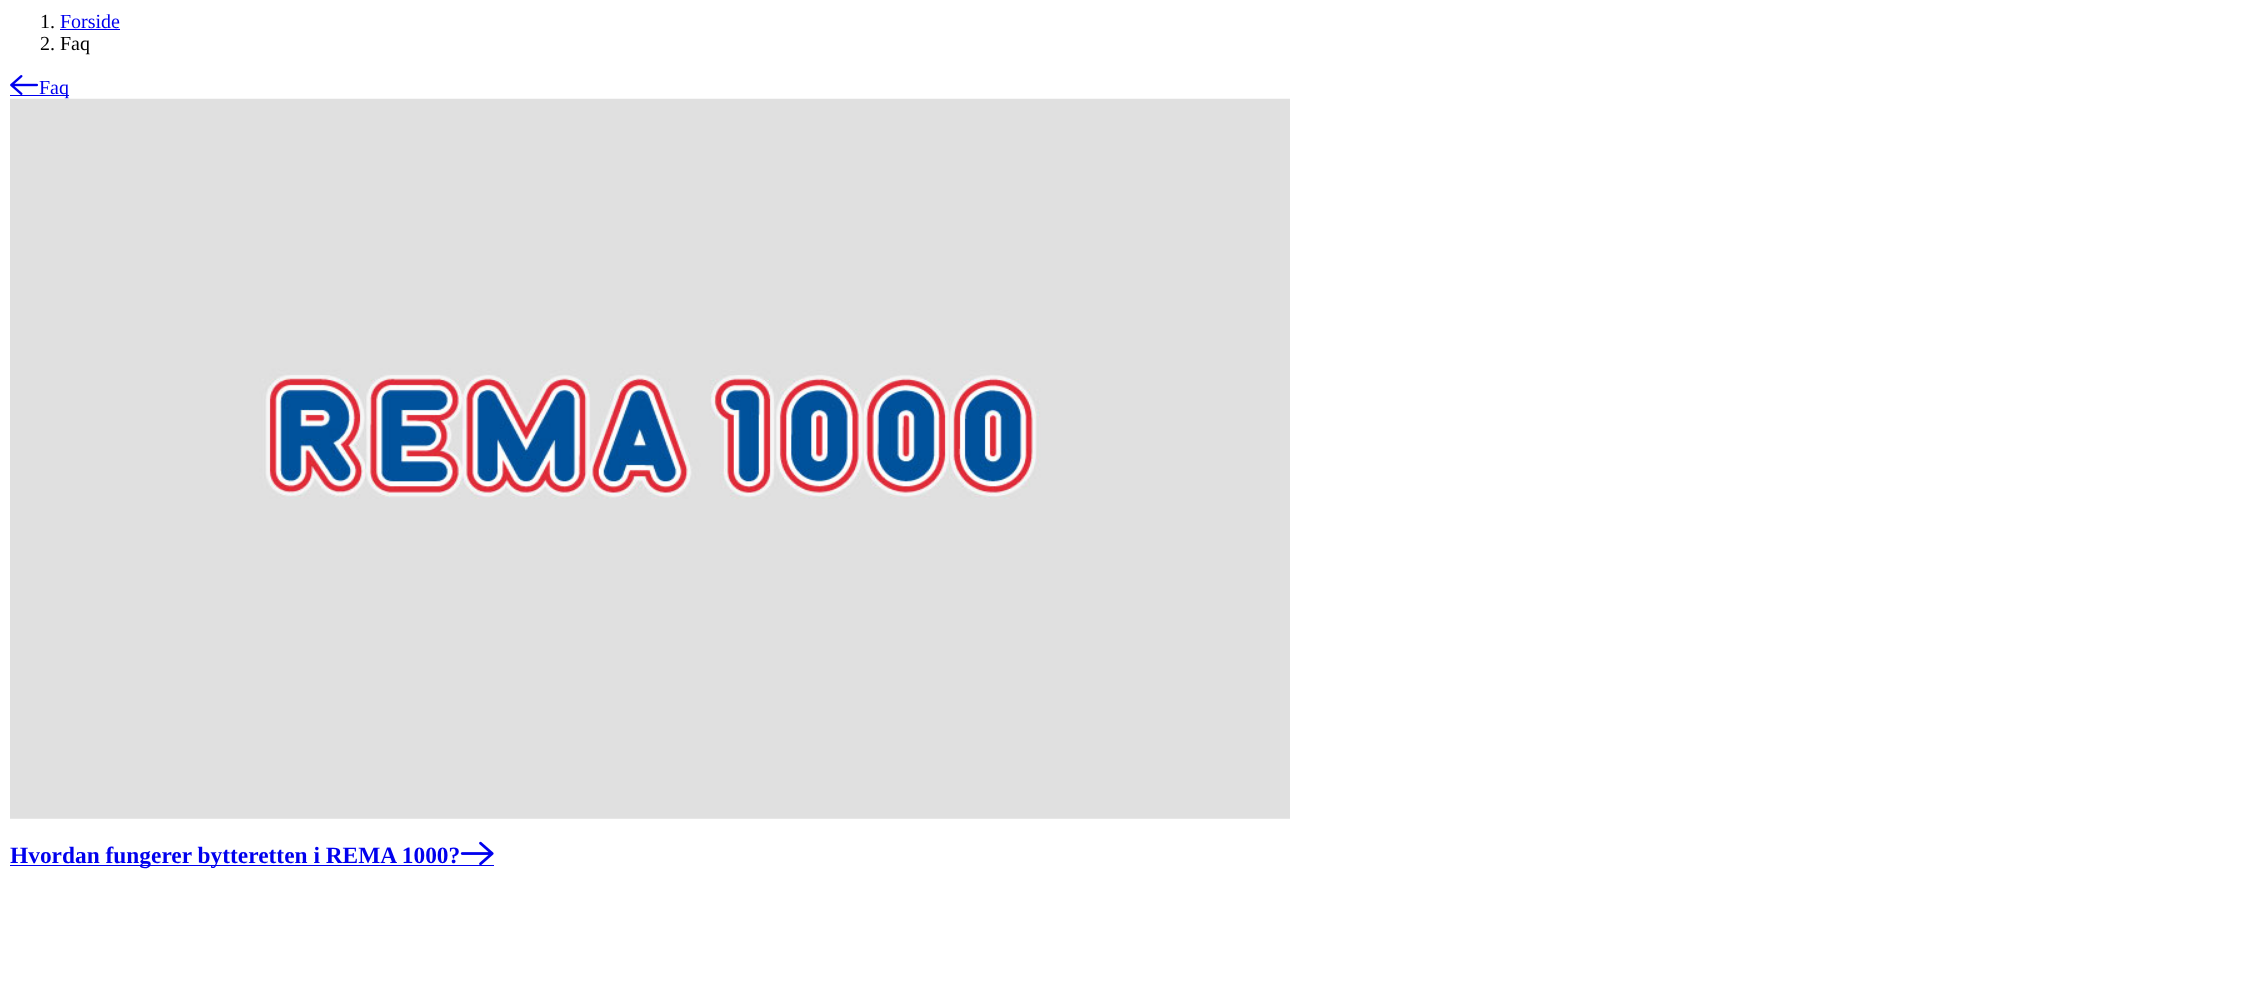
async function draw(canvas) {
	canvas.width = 2241;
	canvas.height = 986;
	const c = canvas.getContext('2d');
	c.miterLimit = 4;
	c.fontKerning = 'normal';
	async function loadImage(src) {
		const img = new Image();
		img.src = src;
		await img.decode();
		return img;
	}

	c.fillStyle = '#fff';
	c.fillRect(0, 0, 2241, 986);
	c.font = '20px Liberation Serif';
	c.fillStyle = '#000';
	c.fillText('1.', 40, 28);
	c.fillStyle = '#00e';
	c.fillText('Forside', 60, 28);
	c.fillRect(60, 29, 60, 1);
	c.fillStyle = '#000';
	c.fillText('2. Faq', 40, 50);
	c.drawImage(await loadImage('img1.png'), 10, 75, 28, 20);
	c.fillStyle = '#00e';
	c.fillRect(10, 95, 59, 1);
	c.fillText('Faq', 39, 94);
	c.drawImage(await loadImage('img2.png'), 10, 98, 1280, 721);
	c.fillRect(10, 865, 484, 1);
	c.font = 'bold 23.4px Liberation Serif';
	c.fillText('Hvordan fungerer bytteretten i REMA 1000?', 10, 863);
	c.drawImage(await loadImage('img3.png'), 460, 841, 34, 24);
}

draw(document.querySelector('canvas'));
